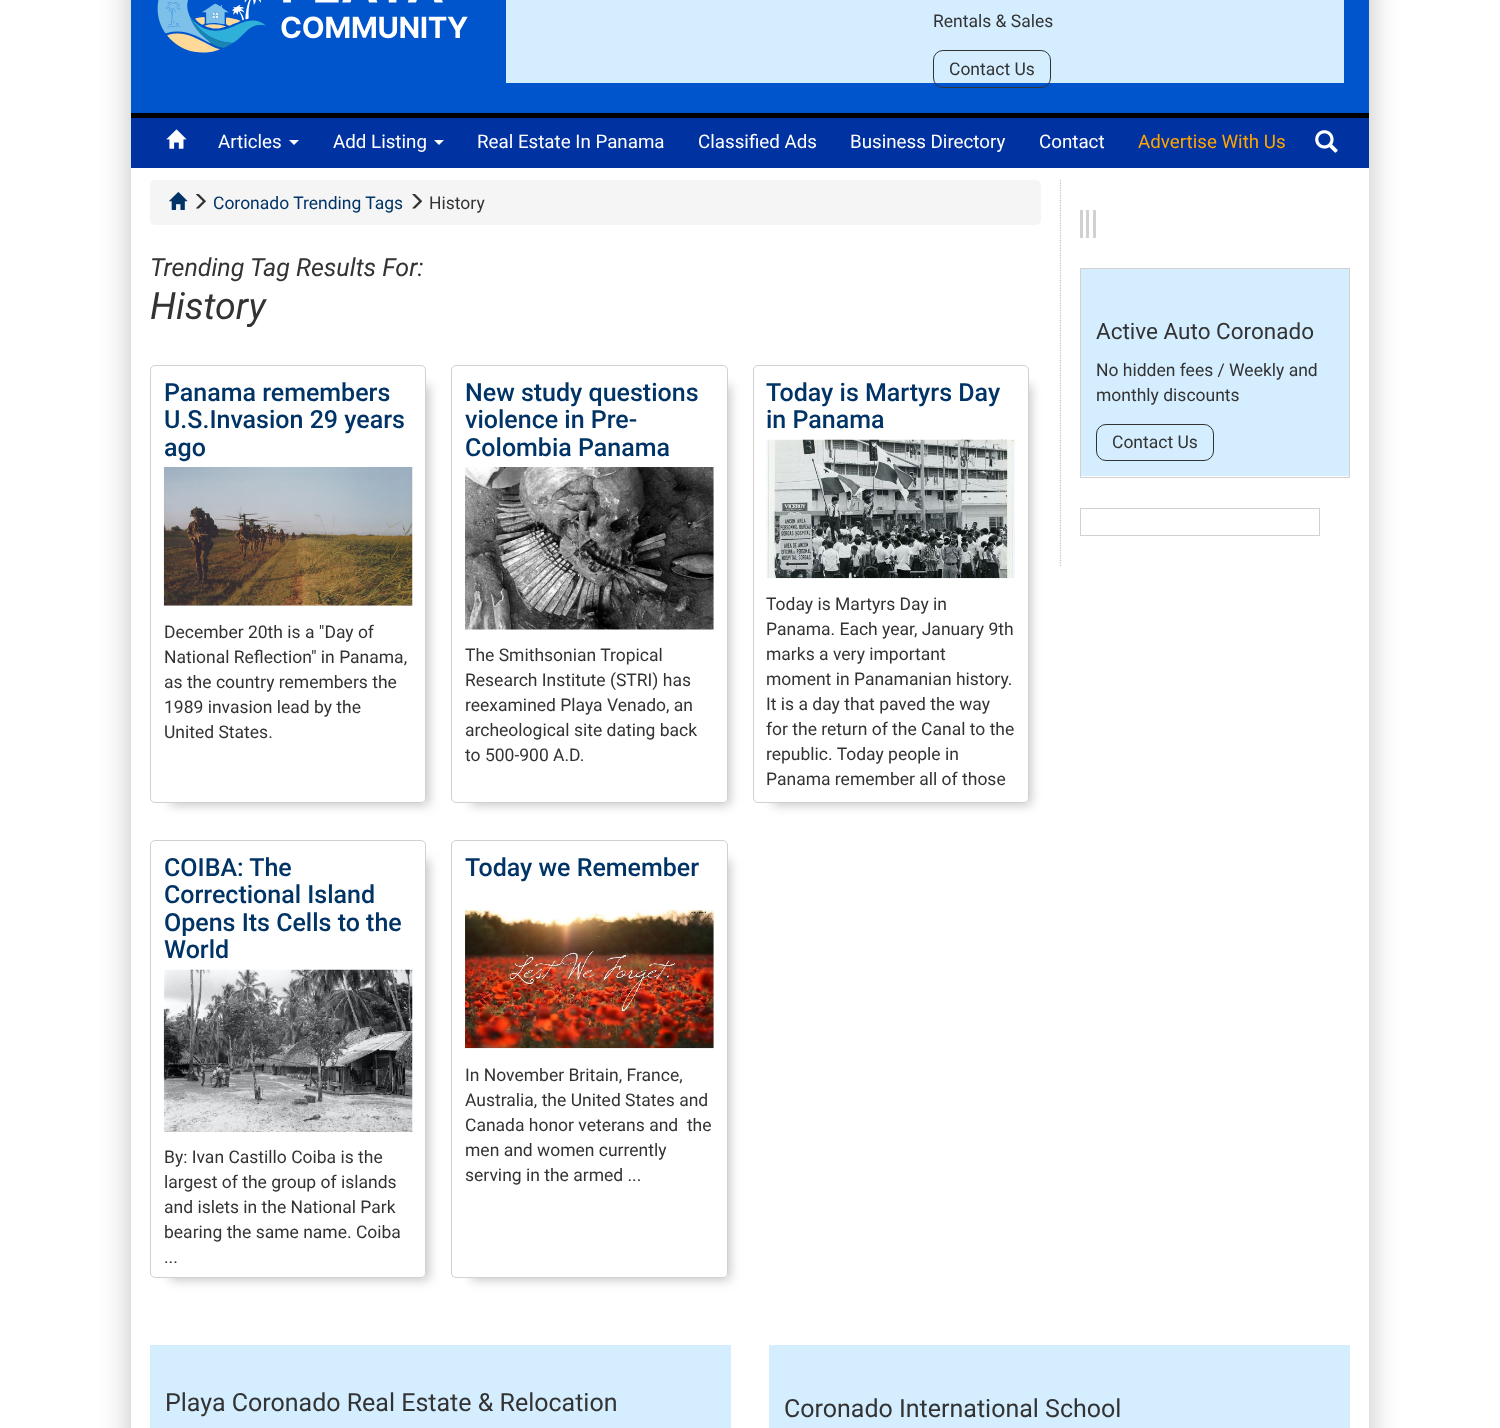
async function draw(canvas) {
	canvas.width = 1500;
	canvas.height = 1428;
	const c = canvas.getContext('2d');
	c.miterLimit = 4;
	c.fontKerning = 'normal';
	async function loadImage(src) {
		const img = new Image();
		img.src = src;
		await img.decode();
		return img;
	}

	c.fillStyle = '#fff';
	c.fillRect(0, 0, 1500, 1428);
	c.save();
	c.beginPath();
	c.moveTo(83, 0);
	c.lineTo(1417, 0);
	c.lineTo(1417, 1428);
	c.lineTo(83, 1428);
	c.closePath();
	c.moveTo(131, -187);
	c.lineTo(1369, -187);
	c.lineTo(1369, 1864);
	c.lineTo(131, 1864);
	c.closePath();
	c.clip('evenodd');
	c.fillStyle = '#c1c1c1';
	c.filter = 'blur(15.5px)';
	c.beginPath();
	c.rect(131, -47, 1238, 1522);
	c.fill();
	c.filter = 'none';
	c.restore();
	c.fillStyle = '#05c';
	c.fillRect(131, 0, 1238, 113);
	c.fillStyle = '#000';
	c.fillRect(131, 113, 1238, 5);
	c.drawImage(await loadImage('img1.png'), 157, 0, 311, 53);
	c.fillStyle = '#d4eeff';
	c.fillRect(506, 0, 838, 83);
	c.font = '17.5px Roboto';
	c.fillStyle = '#333';
	c.fillText('Rentals & Sales', 933, 27);
	c.beginPath();
	c.roundRect(933.5, 50.5, 117, 37, 9.5);
	c.strokeStyle = '#333';
	c.stroke();
	c.fillText('Contact Us', 949, 75);
	c.fillStyle = '#0033a1';
	c.fillRect(131, 118, 1238, 50);
	c.drawImage(await loadImage('img2.png'), 166, 129, 21, 20);
	c.font = '18.75px Roboto';
	c.fillStyle = '#fff';
	c.fillText('Articles', 218, 148);
	c.beginPath();
	c.moveTo(289, 140);
	c.lineTo(299, 140);
	c.lineTo(294, 145);
	c.closePath();
	c.fill();
	c.fillText('Add Listing', 333, 148);
	c.beginPath();
	c.moveTo(434, 140);
	c.lineTo(444, 140);
	c.lineTo(439, 145);
	c.closePath();
	c.fill();
	for (const [text, x, y] of [
		['Real Estate In Panama', 477, 148],
		['Classified Ads', 698, 148],
		['Business Directory', 850, 148],
		['Contact', 1039, 148],
	]) {
		c.fillText(text, x, y);
	}
	c.fillStyle = '#ffa500';
	c.fillText('Advertise With Us', 1138, 148);
	c.drawImage(await loadImage('img3.png'), 1315, 130, 23, 23);
	c.fillStyle = '#f5f5f5';
	c.beginPath();
	c.roundRect(150, 180, 891, 45, 5);
	c.fill();
	c.drawImage(await loadImage('img4.png'), 169, 192, 19, 18);
	c.drawImage(await loadImage('img5.png'), 196, 194, 10, 15);
	c.font = '17.5px Roboto';
	c.fillStyle = '#036';
	c.fillText('Coronado Trending Tags', 213, 209);
	c.drawImage(await loadImage('img6.png'), 412, 194, 11, 15);
	c.fillStyle = '#333';
	c.fillText('History', 429, 209);
	c.font = 'italic 25px Roboto';
	c.fillText('Trending Tag Results For:', 150, 276);
	c.font = 'italic 37.5px Roboto';
	c.fillText('History', 150, 319);
	c.save();
	c.beginPath();
	c.moveTo(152, 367);
	c.lineTo(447, 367);
	c.lineTo(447, 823);
	c.lineTo(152, 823);
	c.closePath();
	c.moveTo(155, 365);
	c.lineTo(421, 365);
	c.bezierCurveTo(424, 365, 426, 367, 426, 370);
	c.lineTo(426, 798);
	c.bezierCurveTo(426, 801, 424, 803, 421, 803);
	c.lineTo(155, 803);
	c.bezierCurveTo(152, 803, 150, 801, 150, 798);
	c.lineTo(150, 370);
	c.bezierCurveTo(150, 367, 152, 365, 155, 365);
	c.closePath();
	c.clip('evenodd');
	c.fillStyle = '#a1a1a19e';
	c.filter = 'blur(5.5px)';
	c.beginPath();
	c.rect(170, 385, 259, 420);
	c.fill();
	c.filter = 'none';
	c.restore();
	c.beginPath();
	c.roundRect(150.5, 365.5, 275, 437, 4.5);
	c.strokeStyle = '#d1d1d1';
	c.stroke();
	c.font = '500 25px Roboto';
	c.fillStyle = '#036';
	for (const [text, x, y] of [
		['Panama remembers', 164, 401],
		['U.S.Invasion 29 years', 164, 428],
		['ago', 164, 456],
	]) {
		c.fillText(text, x, y);
	}
	c.drawImage(await loadImage('img7.png'), 163, 467, 250, 139);
	c.font = '17.5px Roboto';
	c.fillStyle = '#333';
	for (const [text, x, y] of [
		['December 20th is a "Day of', 164, 638],
		['National Reflection" in Panama,', 164, 663],
		['as the country remembers the', 164, 688],
		['1989 invasion lead by the', 164, 713],
		['United States.', 164, 738],
	]) {
		c.fillText(text, x, y);
	}
	c.save();
	c.beginPath();
	c.moveTo(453, 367);
	c.lineTo(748, 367);
	c.lineTo(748, 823);
	c.lineTo(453, 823);
	c.closePath();
	c.moveTo(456, 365);
	c.lineTo(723, 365);
	c.bezierCurveTo(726, 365, 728, 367, 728, 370);
	c.lineTo(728, 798);
	c.bezierCurveTo(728, 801, 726, 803, 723, 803);
	c.lineTo(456, 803);
	c.bezierCurveTo(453, 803, 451, 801, 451, 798);
	c.lineTo(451, 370);
	c.bezierCurveTo(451, 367, 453, 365, 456, 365);
	c.closePath();
	c.clip('evenodd');
	c.fillStyle = '#a1a1a19e';
	c.filter = 'blur(5.5px)';
	c.beginPath();
	c.rect(471, 385, 259, 420);
	c.fill();
	c.filter = 'none';
	c.restore();
	c.beginPath();
	c.roundRect(451.5, 365.5, 276, 437, 4.5);
	c.stroke();
	c.font = '500 25px Roboto';
	c.fillStyle = '#036';
	for (const [text, x, y] of [
		['New study questions', 465, 401],
		['violence in Pre-', 465, 428],
		['Colombia Panama', 465, 456],
	]) {
		c.fillText(text, x, y);
	}
	c.drawImage(await loadImage('img8.png'), 465, 467, 249, 163);
	c.font = '17.5px Roboto';
	c.fillStyle = '#333';
	for (const [text, x, y] of [
		['The Smithsonian Tropical', 465, 661],
		['Research Institute (STRI) has', 465, 686],
		['reexamined Playa Venado, an', 465, 711],
		['archeological site dating back', 465, 736],
		['to 500-900 A.D.', 465, 761],
	]) {
		c.fillText(text, x, y);
	}
	c.save();
	c.beginPath();
	c.moveTo(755, 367);
	c.lineTo(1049, 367);
	c.lineTo(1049, 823);
	c.lineTo(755, 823);
	c.closePath();
	c.moveTo(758, 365);
	c.lineTo(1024, 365);
	c.bezierCurveTo(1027, 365, 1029, 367, 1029, 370);
	c.lineTo(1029, 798);
	c.bezierCurveTo(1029, 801, 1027, 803, 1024, 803);
	c.lineTo(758, 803);
	c.bezierCurveTo(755, 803, 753, 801, 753, 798);
	c.lineTo(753, 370);
	c.bezierCurveTo(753, 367, 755, 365, 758, 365);
	c.closePath();
	c.clip('evenodd');
	c.fillStyle = '#a1a1a19e';
	c.filter = 'blur(5.5px)';
	c.beginPath();
	c.rect(773, 385, 258, 420);
	c.fill();
	c.filter = 'none';
	c.restore();
	c.beginPath();
	c.roundRect(753.5, 365.5, 275, 437, 4.5);
	c.stroke();
	c.font = '500 25px Roboto';
	c.fillStyle = '#036';
	c.fillText('Today is Martyrs Day', 766, 401);
	c.fillText('in Panama', 766, 428);
	c.drawImage(await loadImage('img9.png'), 766, 439, 249, 140);
	c.font = '17.5px Roboto';
	c.fillStyle = '#333';
	for (const [text, x, y] of [
		['Today is Martyrs Day in', 766, 610],
		['Panama. Each year, January 9th', 766, 635],
		['marks a very important', 766, 660],
		['moment in Panamanian history.', 766, 685],
		['It is a day that paved the way', 766, 710],
		['for the return of the Canal to the', 766, 735],
		['republic. Today people in', 766, 760],
		['Panama remember all of those', 766, 785],
	]) {
		c.fillText(text, x, y);
	}
	c.save();
	c.beginPath();
	c.moveTo(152, 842);
	c.lineTo(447, 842);
	c.lineTo(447, 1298);
	c.lineTo(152, 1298);
	c.closePath();
	c.moveTo(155, 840);
	c.lineTo(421, 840);
	c.bezierCurveTo(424, 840, 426, 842, 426, 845);
	c.lineTo(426, 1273);
	c.bezierCurveTo(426, 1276, 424, 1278, 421, 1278);
	c.lineTo(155, 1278);
	c.bezierCurveTo(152, 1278, 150, 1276, 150, 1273);
	c.lineTo(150, 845);
	c.bezierCurveTo(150, 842, 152, 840, 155, 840);
	c.closePath();
	c.clip('evenodd');
	c.fillStyle = '#a1a1a19e';
	c.filter = 'blur(5.5px)';
	c.beginPath();
	c.rect(170, 860, 259, 420);
	c.fill();
	c.filter = 'none';
	c.restore();
	c.beginPath();
	c.roundRect(150.5, 840.5, 275, 437, 4.5);
	c.stroke();
	c.font = '500 25px Roboto';
	c.fillStyle = '#036';
	for (const [text, x, y] of [
		['COIBA: The', 164, 876],
		['Correctional Island', 164, 903],
		['Opens Its Cells to the', 164, 931],
		['World', 164, 958],
	]) {
		c.fillText(text, x, y);
	}
	c.drawImage(await loadImage('img10.png'), 163, 969, 250, 163);
	c.font = '17.5px Roboto';
	c.fillStyle = '#333';
	for (const [text, x, y] of [
		['By: Ivan Castillo Coiba is the', 164, 1163],
		['largest of the group of islands', 164, 1188],
		['and islets in the National Park', 164, 1213],
		['bearing the same name. Coiba', 164, 1238],
		['...', 164, 1263],
	]) {
		c.fillText(text, x, y);
	}
	c.save();
	c.beginPath();
	c.moveTo(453, 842);
	c.lineTo(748, 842);
	c.lineTo(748, 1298);
	c.lineTo(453, 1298);
	c.closePath();
	c.moveTo(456, 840);
	c.lineTo(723, 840);
	c.bezierCurveTo(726, 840, 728, 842, 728, 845);
	c.lineTo(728, 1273);
	c.bezierCurveTo(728, 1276, 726, 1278, 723, 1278);
	c.lineTo(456, 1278);
	c.bezierCurveTo(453, 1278, 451, 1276, 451, 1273);
	c.lineTo(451, 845);
	c.bezierCurveTo(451, 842, 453, 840, 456, 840);
	c.closePath();
	c.clip('evenodd');
	c.fillStyle = '#a1a1a19e';
	c.filter = 'blur(5.5px)';
	c.beginPath();
	c.rect(471, 860, 259, 420);
	c.fill();
	c.filter = 'none';
	c.restore();
	c.beginPath();
	c.roundRect(451.5, 840.5, 276, 437, 4.5);
	c.stroke();
	c.font = '500 25px Roboto';
	c.fillStyle = '#036';
	c.fillText('Today we Remember', 465, 876);
	c.drawImage(await loadImage('img11.png'), 465, 909, 249, 140);
	c.font = '17.5px Roboto';
	c.fillStyle = '#333';
	for (const [text, x, y] of [
		['In November Britain, France,', 465, 1081],
		['Australia, the United States and', 465, 1106],
		['Canada honor veterans and  the', 465, 1131],
		['men and women currently', 465, 1156],
		['serving in the armed ...', 465, 1181],
	]) {
		c.fillText(text, x, y);
	}
	c.beginPath();
	c.moveTo(1060.5, 180);
	c.lineTo(1060.5, 566);
	c.strokeStyle = '#c1c1c1';
	c.lineWidth = 1.2;
	c.setLineDash([1.25, 1.25]);
	c.stroke();
	for (const [x, y, w, h, color] of [
		[1080, 210, 3, 28, '#d1d1d1'],
		[1086, 210, 3, 28, '#d1d1d1'],
		[1093, 210, 3, 28, '#d1d1d1'],
	]) {
		c.fillStyle = color;
		c.fillRect(x, y, w, h);
	}
	c.strokeStyle = '#d1d1d1';
	c.lineWidth = 1;
	c.setLineDash([]);
	c.strokeRect(1080.5, 268.5, 269, 209);
	c.fillStyle = '#d4eeff';
	c.fillRect(1081, 269, 268, 207);
	c.font = '22.5px Roboto';
	c.fillStyle = '#333';
	c.fillText('Active Auto Coronado', 1096, 339);
	c.font = '17.5px Roboto';
	c.fillText('No hidden fees / Weekly and', 1096, 376);
	c.fillText('monthly discounts', 1096, 401);
	c.beginPath();
	c.roundRect(1096.5, 424.5, 117, 36, 9.5);
	c.strokeStyle = '#333';
	c.stroke();
	c.fillText('Contact Us', 1112, 448);
	c.strokeStyle = '#d1d1d1';
	c.strokeRect(1080.5, 508.5, 239, 27);
	c.fillStyle = '#d4eeff';
	c.fillRect(150, 1345, 581, 83);
	c.font = '25px Roboto';
	c.fillStyle = '#333';
	c.fillText('Playa Coronado Real Estate & Relocation', 165, 1411);
	c.fillStyle = '#d4eeff';
	c.fillRect(769, 1345, 581, 83);
	c.fillStyle = '#333';
	c.fillText('Coronado International School', 784, 1417);
}

draw(document.querySelector('canvas'));
